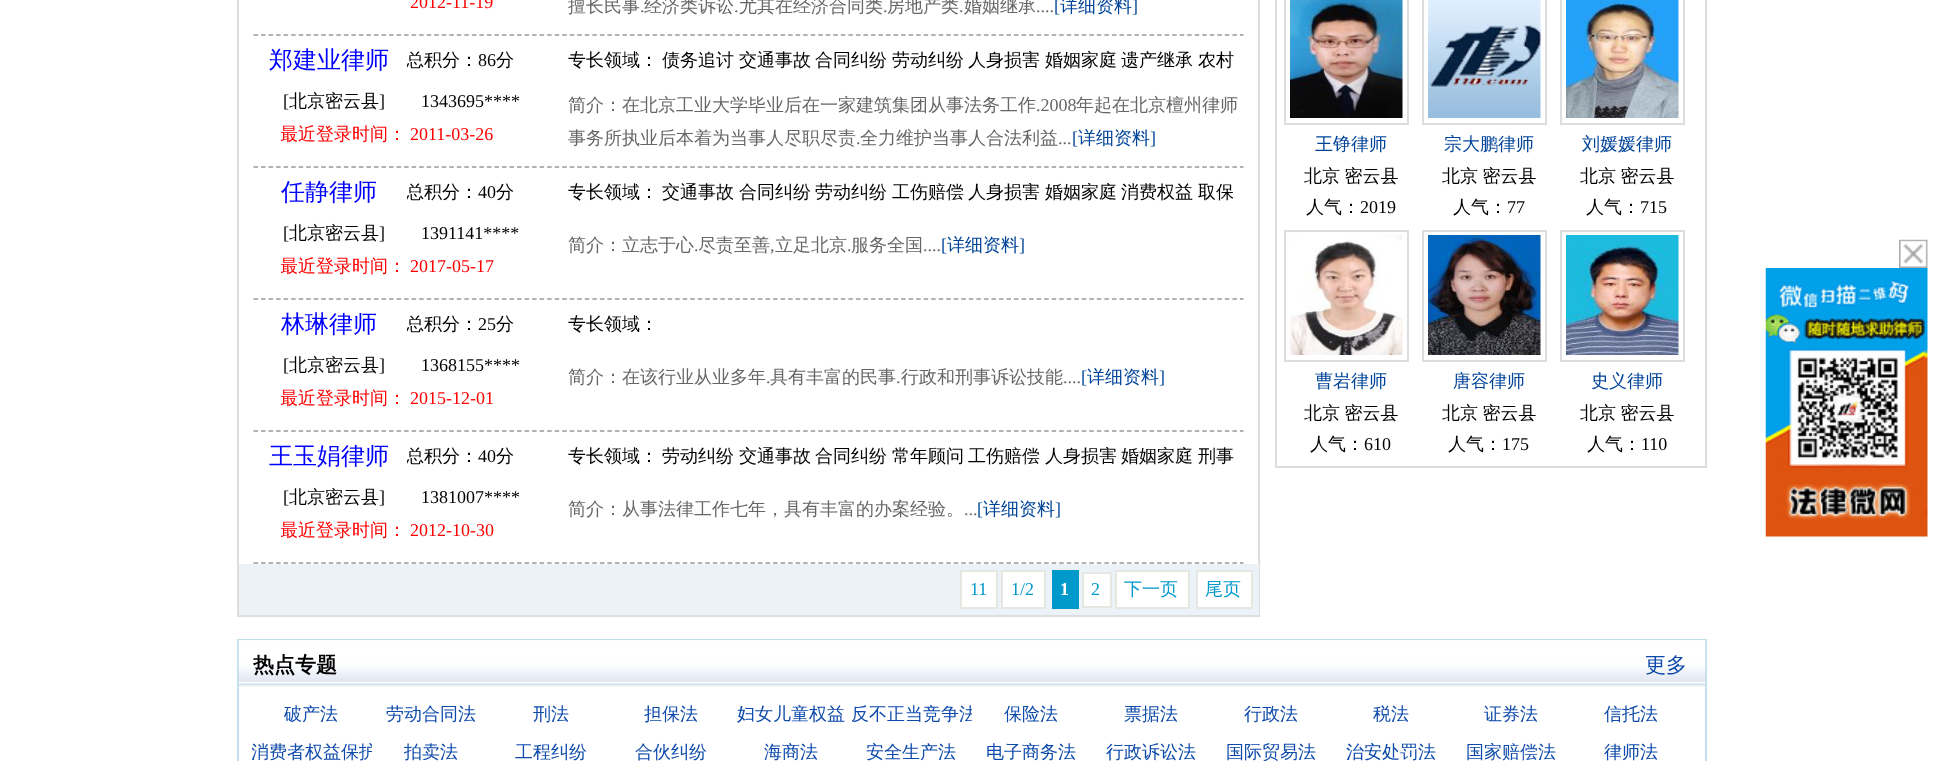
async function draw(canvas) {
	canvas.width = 1942;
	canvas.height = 761;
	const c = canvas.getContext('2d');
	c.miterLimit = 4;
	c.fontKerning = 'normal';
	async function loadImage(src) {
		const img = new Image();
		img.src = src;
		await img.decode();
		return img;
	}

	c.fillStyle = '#fff';
	c.fillRect(0, 0, 1942, 761);
	c.strokeStyle = '#ddd';
	c.lineWidth = 2;
	c.strokeRect(238, -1, 1021, 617);
	c.beginPath();
	c.moveTo(253.5, 35);
	c.lineTo(1243.5, 35);
	c.strokeStyle = '#999';
	c.lineWidth = 1.5;
	c.setLineDash([4.5, 3.03]);
	c.stroke();
	c.font = '18px Liberation Serif';
	c.fillStyle = '#f00';
	c.fillText('2012-11-19', 410, 8);
	c.font = '500 18px WenQuanYi Zen Hei';
	c.fillStyle = '#666';
	c.fillText('擅长民事', 568, 12);
	c.font = '18px Liberation Serif';
	c.fillText('.', 640, 12);
	c.font = '500 18px WenQuanYi Zen Hei';
	c.fillText('经济类诉讼', 644, 12);
	c.font = '18px Liberation Serif';
	c.fillText('.', 734, 12);
	c.font = '500 18px WenQuanYi Zen Hei';
	c.fillText('尤其在经济合同类', 739, 12);
	c.font = '18px Liberation Serif';
	c.fillText('.', 883, 12);
	c.font = '500 18px WenQuanYi Zen Hei';
	c.fillText('房地产类', 887, 12);
	c.font = '18px Liberation Serif';
	c.fillText('.', 959, 12);
	c.font = '500 18px WenQuanYi Zen Hei';
	c.fillText('婚姻继承', 964, 12);
	c.font = '18px Liberation Serif';
	c.fillText('....', 1036, 12);
	c.fillStyle = '#049';
	c.fillText('[', 1054, 12);
	c.font = '500 18px WenQuanYi Zen Hei';
	c.fillText('详细资料', 1060, 12);
	c.font = '18px Liberation Serif';
	c.fillText(']', 1132, 12);
	c.beginPath();
	c.moveTo(253.5, 167);
	c.lineTo(1243.5, 167);
	c.stroke();
	c.font = '500 24px WenQuanYi Zen Hei';
	c.fillStyle = '#00f';
	c.fillText('郑建业律师', 269, 68);
	c.save();
	c.beginPath();
	c.rect(407, 36, 120, 48);
	c.clip();
	c.font = '500 18px WenQuanYi Zen Hei';
	c.fillStyle = '#000';
	c.fillText('总积分：', 406, 66);
	c.restore();
	c.font = '18px Liberation Serif';
	c.fillStyle = '#000';
	c.fillText('86', 478, 66);
	c.font = '500 18px WenQuanYi Zen Hei';
	c.fillText('分', 496, 66);
	c.font = '18px Liberation Serif';
	c.fillText('[', 283, 107);
	c.font = '500 18px WenQuanYi Zen Hei';
	c.fillText('北京密云县', 289, 107);
	c.font = '18px Liberation Serif';
	c.fillText(']', 379, 107);
	c.fillText('1343695****', 421, 107);
	c.save();
	c.beginPath();
	c.rect(281, 117, 213, 33);
	c.clip();
	c.font = '500 18px WenQuanYi Zen Hei';
	c.fillStyle = '#f00';
	c.fillText('最近登录时间：', 280, 140);
	c.restore();
	c.fillStyle = '#f00';
	c.fillText('2011-03-26', 410, 140);
	c.font = '500 18px WenQuanYi Zen Hei';
	c.fillStyle = '#000';
	for (const [text, x, y] of [
		['专长领域：', 568, 66],
		['债务追讨', 662, 66],
		['交通事故', 739, 66],
		['合同纠纷', 815, 66],
		['劳动纠纷', 892, 66],
		['人身损害', 968, 66],
		['婚姻家庭', 1045, 66],
		['遗产继承', 1121, 66],
		['农村', 1198, 66],
	]) {
		c.fillText(text, x, y);
	}
	c.fillStyle = '#666';
	c.fillText('简介：在北京工业大学毕业后在一家建筑集团从事法务工作', 568, 111);
	c.font = '18px Liberation Serif';
	c.fillText('.2008', 1036, 111);
	c.font = '500 18px WenQuanYi Zen Hei';
	c.fillText('年起在北京檀州律师', 1076, 111);
	c.fillText('事务所执业后本着为当事人尽职尽责', 568, 144);
	c.font = '18px Liberation Serif';
	c.fillText('.', 856, 144);
	c.font = '500 18px WenQuanYi Zen Hei';
	c.fillText('全力维护当事人合法利益', 860, 144);
	c.font = '18px Liberation Serif';
	c.fillText('...', 1058, 144);
	c.fillStyle = '#049';
	c.fillText('[', 1072, 144);
	c.font = '500 18px WenQuanYi Zen Hei';
	c.fillText('详细资料', 1078, 144);
	c.font = '18px Liberation Serif';
	c.fillText(']', 1150, 144);
	c.beginPath();
	c.moveTo(253.5, 299);
	c.lineTo(1243.5, 299);
	c.stroke();
	c.font = '500 24px WenQuanYi Zen Hei';
	c.fillStyle = '#00f';
	c.fillText('任静律师', 281, 200);
	c.save();
	c.beginPath();
	c.rect(407, 168, 120, 48);
	c.clip();
	c.font = '500 18px WenQuanYi Zen Hei';
	c.fillStyle = '#000';
	c.fillText('总积分：', 406, 198);
	c.restore();
	c.font = '18px Liberation Serif';
	c.fillStyle = '#000';
	c.fillText('40', 478, 198);
	c.font = '500 18px WenQuanYi Zen Hei';
	c.fillText('分', 496, 198);
	c.font = '18px Liberation Serif';
	c.fillText('[', 283, 239);
	c.font = '500 18px WenQuanYi Zen Hei';
	c.fillText('北京密云县', 289, 239);
	c.font = '18px Liberation Serif';
	c.fillText(']', 379, 239);
	c.fillText('1391141****', 421, 239);
	c.save();
	c.beginPath();
	c.rect(281, 249, 214, 33);
	c.clip();
	c.font = '500 18px WenQuanYi Zen Hei';
	c.fillStyle = '#f00';
	c.fillText('最近登录时间：', 280, 272);
	c.restore();
	c.fillStyle = '#f00';
	c.fillText('2017-05-17', 410, 272);
	c.font = '500 18px WenQuanYi Zen Hei';
	c.fillStyle = '#000';
	for (const [text, x, y] of [
		['专长领域：', 568, 198],
		['交通事故', 662, 198],
		['合同纠纷', 739, 198],
		['劳动纠纷', 815, 198],
		['工伤赔偿', 892, 198],
		['人身损害', 968, 198],
		['婚姻家庭', 1045, 198],
		['消费权益', 1121, 198],
		['取保', 1198, 198],
	]) {
		c.fillText(text, x, y);
	}
	c.fillStyle = '#666';
	c.fillText('简介：立志于心', 568, 251);
	c.font = '18px Liberation Serif';
	c.fillText('.', 694, 251);
	c.font = '500 18px WenQuanYi Zen Hei';
	c.fillText('尽责至善', 698, 251);
	c.font = '18px Liberation Serif';
	c.fillText(',', 770, 251);
	c.font = '500 18px WenQuanYi Zen Hei';
	c.fillText('立足北京', 775, 251);
	c.font = '18px Liberation Serif';
	c.fillText('.', 847, 251);
	c.font = '500 18px WenQuanYi Zen Hei';
	c.fillText('服务全国', 851, 251);
	c.font = '18px Liberation Serif';
	c.fillText('....', 923, 251);
	c.fillStyle = '#049';
	c.fillText('[', 941, 251);
	c.font = '500 18px WenQuanYi Zen Hei';
	c.fillText('详细资料', 947, 251);
	c.font = '18px Liberation Serif';
	c.fillText(']', 1019, 251);
	c.beginPath();
	c.moveTo(253.5, 431);
	c.lineTo(1243.5, 431);
	c.stroke();
	c.font = '500 24px WenQuanYi Zen Hei';
	c.fillStyle = '#00f';
	c.fillText('林琳律师', 281, 332);
	c.save();
	c.beginPath();
	c.rect(407, 300, 120, 48);
	c.clip();
	c.font = '500 18px WenQuanYi Zen Hei';
	c.fillStyle = '#000';
	c.fillText('总积分：', 406, 330);
	c.restore();
	c.font = '18px Liberation Serif';
	c.fillStyle = '#000';
	c.fillText('25', 478, 330);
	c.font = '500 18px WenQuanYi Zen Hei';
	c.fillText('分', 496, 330);
	c.font = '18px Liberation Serif';
	c.fillText('[', 283, 371);
	c.font = '500 18px WenQuanYi Zen Hei';
	c.fillText('北京密云县', 289, 371);
	c.font = '18px Liberation Serif';
	c.fillText(']', 379, 371);
	c.fillText('1368155****', 421, 371);
	c.save();
	c.beginPath();
	c.rect(281, 381, 214, 33);
	c.clip();
	c.font = '500 18px WenQuanYi Zen Hei';
	c.fillStyle = '#f00';
	c.fillText('最近登录时间：', 280, 404);
	c.restore();
	c.fillStyle = '#f00';
	c.fillText('2015-12-01', 410, 404);
	c.font = '500 18px WenQuanYi Zen Hei';
	c.fillStyle = '#000';
	c.fillText('专长领域：', 568, 330);
	c.fillStyle = '#666';
	c.fillText('简介：在该行业从业多年', 568, 383);
	c.font = '18px Liberation Serif';
	c.fillText('.', 766, 383);
	c.font = '500 18px WenQuanYi Zen Hei';
	c.fillText('具有丰富的民事', 770, 383);
	c.font = '18px Liberation Serif';
	c.fillText('.', 896, 383);
	c.font = '500 18px WenQuanYi Zen Hei';
	c.fillText('行政和刑事诉讼技能', 901, 383);
	c.font = '18px Liberation Serif';
	c.fillText('....', 1063, 383);
	c.fillStyle = '#049';
	c.fillText('[', 1081, 383);
	c.font = '500 18px WenQuanYi Zen Hei';
	c.fillText('详细资料', 1087, 383);
	c.font = '18px Liberation Serif';
	c.fillText(']', 1159, 383);
	c.beginPath();
	c.moveTo(253.5, 563);
	c.lineTo(1243.5, 563);
	c.stroke();
	c.font = '500 24px WenQuanYi Zen Hei';
	c.fillStyle = '#00f';
	c.fillText('王玉娟律师', 269, 464);
	c.save();
	c.beginPath();
	c.rect(407, 432, 120, 48);
	c.clip();
	c.font = '500 18px WenQuanYi Zen Hei';
	c.fillStyle = '#000';
	c.fillText('总积分：', 406, 462);
	c.restore();
	c.font = '18px Liberation Serif';
	c.fillStyle = '#000';
	c.fillText('40', 478, 462);
	c.font = '500 18px WenQuanYi Zen Hei';
	c.fillText('分', 496, 462);
	c.font = '18px Liberation Serif';
	c.fillText('[', 283, 503);
	c.font = '500 18px WenQuanYi Zen Hei';
	c.fillText('北京密云县', 289, 503);
	c.font = '18px Liberation Serif';
	c.fillText(']', 379, 503);
	c.fillText('1381007****', 421, 503);
	c.save();
	c.beginPath();
	c.rect(281, 513, 214, 33);
	c.clip();
	c.font = '500 18px WenQuanYi Zen Hei';
	c.fillStyle = '#f00';
	c.fillText('最近登录时间：', 280, 536);
	c.restore();
	c.fillStyle = '#f00';
	c.fillText('2012-10-30', 410, 536);
	c.font = '500 18px WenQuanYi Zen Hei';
	c.fillStyle = '#000';
	for (const [text, x, y] of [
		['专长领域：', 568, 462],
		['劳动纠纷', 662, 462],
		['交通事故', 739, 462],
		['合同纠纷', 815, 462],
		['常年顾问', 892, 462],
		['工伤赔偿', 968, 462],
		['人身损害', 1045, 462],
		['婚姻家庭', 1121, 462],
		['刑事', 1198, 462],
	]) {
		c.fillText(text, x, y);
	}
	c.fillStyle = '#666';
	c.fillText('简介：从事法律工作七年，具有丰富的办案经验。', 568, 515);
	c.font = '18px Liberation Serif';
	c.fillText('...', 964, 515);
	c.fillStyle = '#049';
	c.fillText('[', 977, 515);
	c.font = '500 18px WenQuanYi Zen Hei';
	c.fillText('详细资料', 983, 515);
	c.font = '18px Liberation Serif';
	c.fillText(']', 1055, 515);
	c.fillStyle = '#ebf2f8';
	c.fillRect(239, 564, 1020, 51);
	c.fillStyle = '#fff';
	c.beginPath();
	c.rect(961, 571, 36, 37);
	c.fill();
	c.strokeStyle = '#e6e7e1';
	c.lineWidth = 2;
	c.setLineDash([]);
	c.stroke();
	c.fillStyle = '#09c';
	c.fillText('11', 970, 595);
	c.fillStyle = '#fff';
	c.beginPath();
	c.rect(1002, 571, 43, 37);
	c.fill();
	c.stroke();
	c.fillStyle = '#09c';
	c.fillText('1/2', 1011, 595);
	c.fillRect(1052, 570, 27, 39);
	c.font = 'bold 18px Liberation Serif';
	c.fillStyle = '#fff';
	c.fillText('1', 1060, 595);
	c.beginPath();
	c.rect(1083, 573, 28, 34);
	c.fill();
	c.stroke();
	c.font = '18px Liberation Serif';
	c.fillStyle = '#09c';
	c.fillText('2', 1091, 595);
	c.fillStyle = '#fff';
	c.beginPath();
	c.rect(1116, 571, 73, 37);
	c.fill();
	c.stroke();
	c.font = '500 18px WenQuanYi Zen Hei';
	c.fillStyle = '#09c';
	c.fillText('下一页', 1124, 595);
	c.fillStyle = '#fff';
	c.beginPath();
	c.rect(1197, 571, 55, 37);
	c.fill();
	c.stroke();
	c.fillStyle = '#09c';
	c.fillText('尾页', 1205, 595);
	c.strokeStyle = '#ddd';
	c.strokeRect(1276, -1, 430, 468);
	c.strokeRect(1285, -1, 123, 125);
	c.drawImage(await loadImage('img1.png'), 1290, 0, 113, 118);
	c.fillStyle = '#049';
	c.fillText('王铮律师', 1315, 150);
	c.wordSpacing = '-1px';
	c.fillStyle = '#000';
	c.fillText('北京 密云县', 1304, 182);
	c.wordSpacing = '0px';
	c.fillText('人气：', 1306, 213);
	c.font = '18px Liberation Serif';
	c.fillText('2019', 1360, 213);
	c.strokeRect(1423, -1, 123, 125);
	c.drawImage(await loadImage('img2.png'), 1428, 0, 113, 118);
	c.font = '500 18px WenQuanYi Zen Hei';
	c.fillStyle = '#049';
	c.fillText('宗大鹏律师', 1444, 150);
	c.wordSpacing = '-1px';
	c.fillStyle = '#000';
	c.fillText('北京 密云县', 1442, 182);
	c.wordSpacing = '0px';
	c.fillText('人气：', 1453, 213);
	c.font = '18px Liberation Serif';
	c.fillText('77', 1507, 213);
	c.strokeRect(1561, -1, 123, 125);
	c.drawImage(await loadImage('img3.png'), 1566, 0, 113, 118);
	c.font = '500 18px WenQuanYi Zen Hei';
	c.fillStyle = '#049';
	c.fillText('刘媛媛律师', 1582, 150);
	c.wordSpacing = '-1px';
	c.fillStyle = '#000';
	c.fillText('北京 密云县', 1580, 182);
	c.wordSpacing = '0px';
	c.fillText('人气：', 1586, 213);
	c.font = '18px Liberation Serif';
	c.fillText('715', 1640, 213);
	c.strokeRect(1285, 231, 123, 130);
	c.drawImage(await loadImage('img4.png'), 1290, 235, 113, 120);
	c.font = '500 18px WenQuanYi Zen Hei';
	c.fillStyle = '#049';
	c.fillText('曹岩律师', 1315, 387);
	c.wordSpacing = '-1px';
	c.fillStyle = '#000';
	c.fillText('北京 密云县', 1304, 419);
	c.wordSpacing = '0px';
	c.fillText('人气：', 1310, 450);
	c.font = '18px Liberation Serif';
	c.fillText('610', 1364, 450);
	c.strokeRect(1423, 231, 123, 130);
	c.drawImage(await loadImage('img5.png'), 1428, 235, 113, 120);
	c.font = '500 18px WenQuanYi Zen Hei';
	c.fillStyle = '#049';
	c.fillText('唐容律师', 1453, 387);
	c.wordSpacing = '-1px';
	c.fillStyle = '#000';
	c.fillText('北京 密云县', 1442, 419);
	c.wordSpacing = '0px';
	c.fillText('人气：', 1448, 450);
	c.font = '18px Liberation Serif';
	c.fillText('175', 1502, 450);
	c.strokeRect(1561, 231, 123, 130);
	c.drawImage(await loadImage('img6.png'), 1566, 235, 113, 120);
	c.font = '500 18px WenQuanYi Zen Hei';
	c.fillStyle = '#049';
	c.fillText('史义律师', 1591, 387);
	c.wordSpacing = '-1px';
	c.fillStyle = '#000';
	c.fillText('北京 密云县', 1580, 419);
	c.wordSpacing = '0px';
	c.fillText('人气：', 1587, 450);
	c.font = '18px Liberation Serif';
	c.fillText('110', 1641, 450);
	c.drawImage(await loadImage('img7.png'), 1899, 239, 29, 29);
	c.drawImage(await loadImage('img8.png'), 1765, 268, 163, 269);
	c.strokeStyle = '#c1dfed';
	c.strokeRect(238, 640, 1468, 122);
	c.drawImage(await loadImage('img9.png'), 238, 640, 1468, 47);
	c.font = 'bold 21px WenQuanYi Zen Hei';
	c.fillText('热点专题', 253, 672);
	c.font = '500 21px WenQuanYi Zen Hei';
	c.fillStyle = '#0e4aab';
	c.fillText('更多', 1645, 672);
	c.font = '500 18px WenQuanYi Zen Hei';
	for (const [text, x, y] of [
		['破产法', 284, 720],
		['劳动合同法', 386, 720],
		['刑法', 533, 720],
		['担保法', 644, 720],
		['妇女儿童权益', 737, 720],
	]) {
		c.fillText(text, x, y);
	}
	c.save();
	c.beginPath();
	c.rect(852, 695, 120, 37);
	c.clip();
	c.fillText('反不正当竞争法', 851, 720);
	c.restore();
	for (const [text, x, y] of [
		['保险法', 1004, 720],
		['票据法', 1124, 720],
		['行政法', 1244, 720],
		['税法', 1373, 720],
		['证券法', 1484, 720],
		['信托法', 1604, 720],
	]) {
		c.fillText(text, x, y);
	}
	c.save();
	c.beginPath();
	c.rect(252, 732, 120, 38);
	c.clip();
	c.fillText('消费者权益保护', 251, 758);
	c.restore();
	for (const [text, x, y] of [
		['拍卖法', 404, 758],
		['工程纠纷', 515, 758],
		['合伙纠纷', 635, 758],
		['海商法', 764, 758],
		['安全生产法', 866, 758],
		['电子商务法', 986, 758],
		['行政诉讼法', 1106, 758],
		['国际贸易法', 1226, 758],
		['治安处罚法', 1346, 758],
		['国家赔偿法', 1466, 758],
		['律师法', 1604, 758],
	]) {
		c.fillText(text, x, y);
	}
}

draw(document.querySelector('canvas'));
